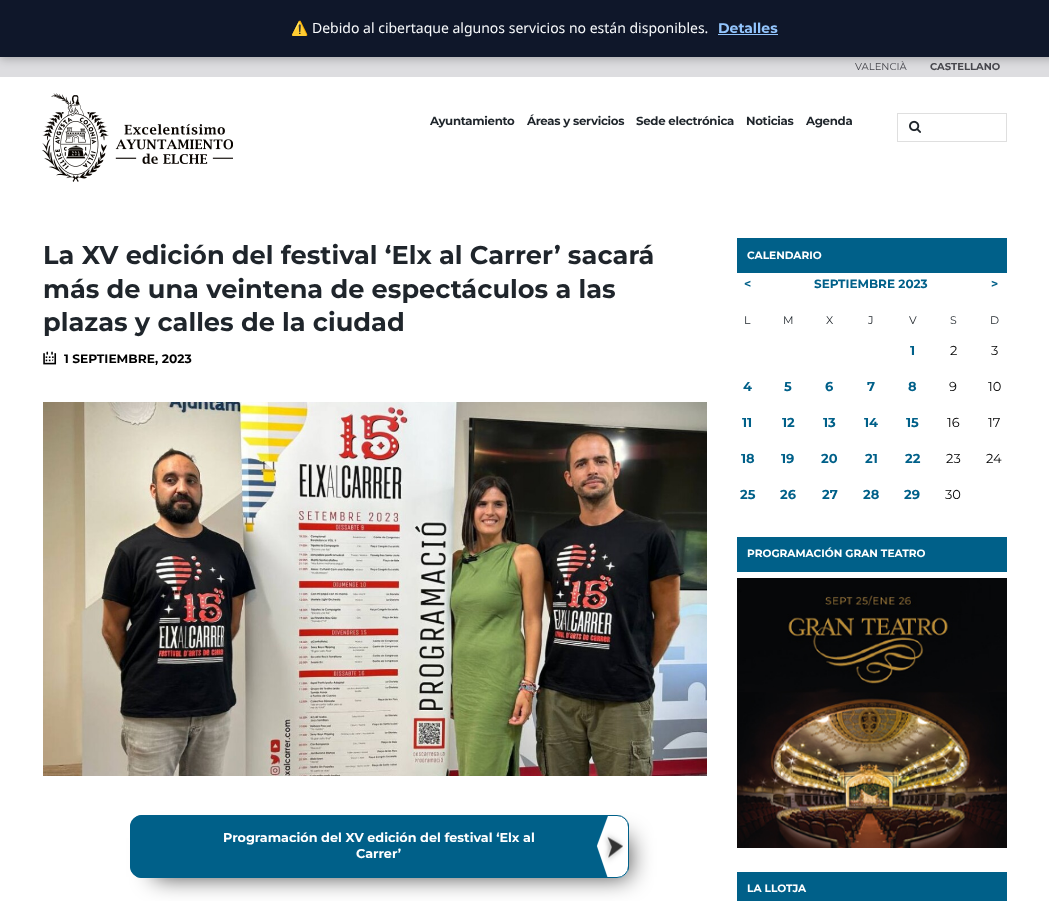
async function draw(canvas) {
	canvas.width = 1049;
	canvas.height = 901;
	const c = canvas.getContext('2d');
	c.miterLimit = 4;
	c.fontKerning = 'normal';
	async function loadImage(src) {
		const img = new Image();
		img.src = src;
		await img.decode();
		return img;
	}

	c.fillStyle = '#fff';
	c.fillRect(0, 0, 1049, 901);
	c.fillStyle = '#dddde0';
	c.fillRect(0, 57, 1049, 20);
	c.fillStyle = '#00000040';
	c.filter = 'blur(5px)';
	c.beginPath();
	c.rect(0, 2, 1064, 57);
	c.fill();
	c.filter = 'none';
	c.fillStyle = '#0f172a';
	c.fillRect(0, 0, 1049, 57);
	c.font = '14px Noto Color Emoji';
	c.fillStyle = '#f8fafc';
	c.fillText('⚠️', 291, 33);
	c.font = '14px Noto Sans';
	c.fillText('Debido al cibertaque algunos servicios no están disponibles.', 312, 33);
	c.font = 'bold 14px Montserrat';
	c.fillStyle = '#93c5fd';
	c.fillText('Detalles', 718, 33);
	c.fillRect(718, 34, 60, 1);
	c.font = '10px Montserrat';
	c.fillStyle = '#47474d';
	c.fillText('VALENCIÀ', 855, 70);
	c.font = 'bold 10px Montserrat';
	c.fillText('CASTELLANO', 930, 70);
	c.drawImage(await loadImage('img1.png'), 42, 93, 191, 89);
	c.letterSpacing = '-0.3px';
	c.font = 'bold 11.75px Montserrat';
	c.fillStyle = '#1f252b';
	for (const [text, x, y] of [
		['Ayuntamiento', 430, 125],
		['Áreas y servicios', 527, 125],
		['Sede electrónica', 636, 125],
		['Noticias', 746, 125],
		['Agenda', 806, 125],
	]) {
		c.fillText(text, x, y);
	}
	c.strokeStyle = '#dfdfdf';
	c.strokeRect(897.5, 113.5, 109, 28);
	c.drawImage(await loadImage('img2.png'), 909, 120, 12, 13);
	c.letterSpacing = '0px';
	c.font = 'bold 25.65px Montserrat';
	for (const [text, x, y] of [
		['La XV edición del festival ‘Elx al Carrer’ sacará', 43, 264],
		['más de una veintena de espectáculos a las', 43, 298],
		['plazas y calles de la ciudad', 43, 331],
	]) {
		c.fillText(text, x, y);
	}
	c.drawImage(await loadImage('img3.png'), 43, 351, 14, 14);
	c.font = 'bold 12.25px Montserrat';
	c.fillStyle = '#000';
	c.fillText('1 SEPTIEMBRE, 2023', 64, 363);
	c.drawImage(await loadImage('img4.png'), 43, 402, 664, 374);
	c.fillStyle = '#000000bf';
	c.filter = 'blur(11.5px)';
	c.beginPath();
	c.rect(154, 838, 475, 39);
	c.fill();
	c.filter = 'none';
	c.fillStyle = '#006089';
	c.beginPath();
	c.roundRect(130, 815, 499, 63, 12);
	c.fill();
	c.drawImage(await loadImage('img5.png'), 596, 815, 32, 63);
	c.beginPath();
	c.roundRect(130.5, 815.5, 498, 62, 11.5);
	c.strokeStyle = '#006089';
	c.stroke();
	c.font = 'bold 12.75px Montserrat';
	c.fillStyle = '#fff';
	c.fillText('Programación del XV edición del festival ‘Elx al', 223, 842);
	c.fillText('Carrer’', 356, 858);
	c.fillStyle = '#006089';
	c.fillRect(737, 238, 270, 35);
	c.font = 'bold 10.6px Montserrat';
	c.fillStyle = '#fff';
	c.fillText('CALENDARIO', 747, 259);
	c.font = 'bold 12px Montserrat';
	c.fillStyle = '#006089';
	for (const [text, x, y] of [
		['<', 744, 288],
		['SEPTIEMBRE 2023', 814, 288],
		['>', 991, 288],
	]) {
		c.fillText(text, x, y);
	}
	c.font = '11px Montserrat';
	c.fillStyle = '#1f252b';
	for (const [text, x, y] of [
		['L', 744, 324],
		['M', 783, 324],
		['X', 826, 324],
		['J', 868, 324],
		['V', 909, 324],
		['S', 950, 324],
		['D', 990, 324],
	]) {
		c.fillText(text, x, y);
	}
	c.font = 'bold 13px Montserrat';
	c.fillStyle = '#006089';
	c.fillText('1', 910, 355);
	c.font = '13px Montserrat';
	c.fillStyle = '#000';
	c.fillText('2', 950, 355);
	c.fillText('3', 991, 355);
	c.font = 'bold 13px Montserrat';
	c.fillStyle = '#006089';
	for (const [text, x, y] of [
		['4', 743, 391],
		['5', 784, 391],
		['6', 825, 391],
		['7', 867, 391],
		['8', 908, 391],
	]) {
		c.fillText(text, x, y);
	}
	c.font = '13px Montserrat';
	c.fillStyle = '#000';
	c.fillText('9', 949, 391);
	c.fillText('10', 988, 391);
	c.font = 'bold 13px Montserrat';
	c.fillStyle = '#006089';
	for (const [text, x, y] of [
		['11', 742, 427],
		['12', 782, 427],
		['13', 823, 427],
		['14', 864, 427],
		['15', 906, 427],
	]) {
		c.fillText(text, x, y);
	}
	c.font = '13px Montserrat';
	c.fillStyle = '#000';
	c.fillText('16', 947, 427);
	c.fillText('17', 988, 427);
	c.font = 'bold 13px Montserrat';
	c.fillStyle = '#006089';
	for (const [text, x, y] of [
		['18', 741, 463],
		['19', 781, 463],
		['20', 821, 463],
		['21', 865, 463],
		['22', 905, 463],
	]) {
		c.fillText(text, x, y);
	}
	c.font = '13px Montserrat';
	c.fillStyle = '#000';
	c.fillText('23', 946, 463);
	c.fillText('24', 986, 463);
	c.font = 'bold 13px Montserrat';
	c.fillStyle = '#006089';
	for (const [text, x, y] of [
		['25', 740, 499],
		['26', 780, 499],
		['27', 822, 499],
		['28', 863, 499],
		['29', 904, 499],
	]) {
		c.fillText(text, x, y);
	}
	c.font = '13px Montserrat';
	c.fillStyle = '#000';
	c.fillText('30', 945, 499);
	c.fillStyle = '#006089';
	c.fillRect(737, 537, 270, 35);
	c.font = 'bold 10.6px Montserrat';
	c.fillStyle = '#fff';
	c.fillText('PROGRAMACIÓN GRAN TEATRO', 747, 557);
	c.drawImage(await loadImage('img6.png'), 737, 578, 270, 270);
	c.fillStyle = '#006089';
	c.fillRect(737, 872, 270, 29);
	c.fillStyle = '#fff';
	c.fillText('LA LLOTJA', 747, 892);
}

draw(document.querySelector('canvas'));
